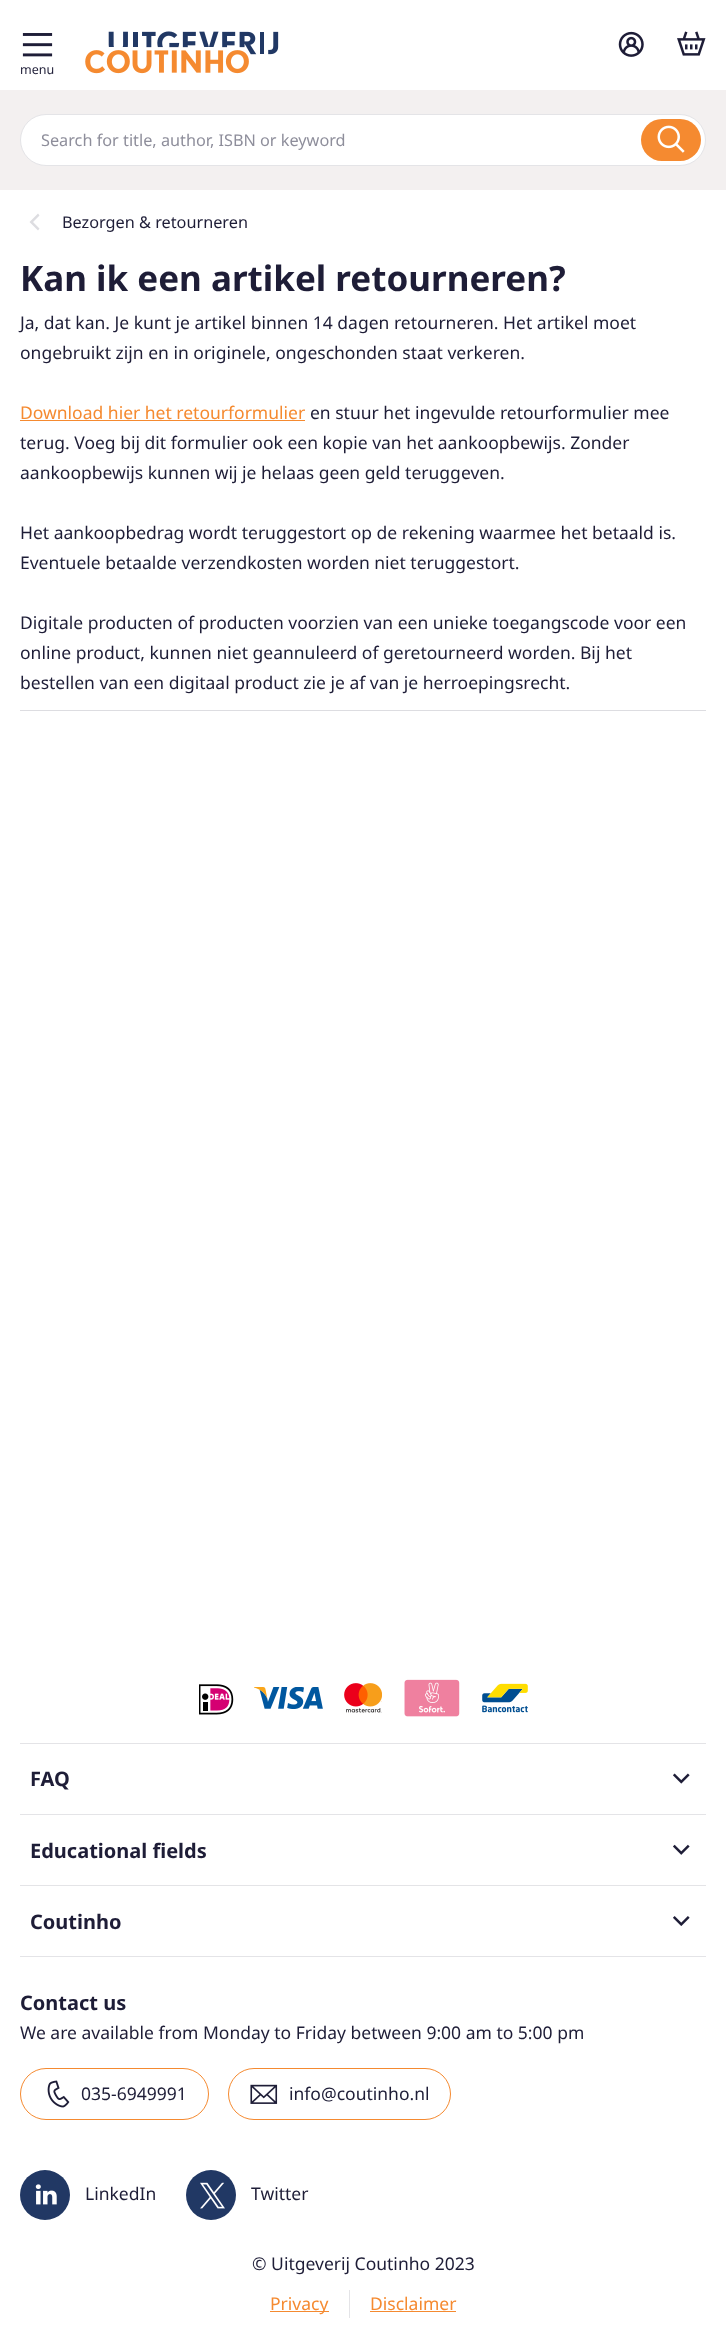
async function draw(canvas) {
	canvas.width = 726;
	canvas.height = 2337;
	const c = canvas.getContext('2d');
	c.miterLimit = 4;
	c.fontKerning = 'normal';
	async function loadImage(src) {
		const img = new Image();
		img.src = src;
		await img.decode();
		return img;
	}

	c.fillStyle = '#fff';
	c.fillRect(0, 0, 726, 2337);
	c.drawImage(await loadImage('img1.png'), 618, 31, 26, 26);
	c.drawImage(await loadImage('img2.png'), 677, 31, 29, 25);
	c.drawImage(await loadImage('img3.png'), 22, 33, 31, 24);
	c.font = '12.5px Noto Sans';
	c.fillStyle = '#1e1d37';
	c.fillText('menu', 20, 74);
	c.drawImage(await loadImage('img4.png'), 85, 31, 194, 43);
	c.fillStyle = '#f3f0f0';
	c.fillRect(0, 90, 726, 100);
	c.fillStyle = '#fff';
	c.beginPath();
	c.roundRect(20.5, 114.5, 685, 51, 25.5);
	c.fill();
	c.strokeStyle = '#e4e4e7';
	c.stroke();
	c.font = '16.25px Noto Sans';
	c.fillStyle = '#8e8e9b';
	c.fillText('Search for title, author, ISBN or keyword', 41, 146);
	c.fillStyle = '#f58a30';
	c.beginPath();
	c.roundRect(641, 119, 60, 42, 21);
	c.fill();
	c.drawImage(await loadImage('img5.png'), 657, 125, 28, 28);
	c.fillStyle = '#1e1d37';
	c.fillText('Bezorgen & retourneren', 62, 228);
	c.fillStyle = '#dddde1';
	c.beginPath();
	c.moveTo(33, 222);
	c.lineTo(39.5, 215.5);
	c.lineTo(38, 213.5);
	c.lineTo(29.5, 222);
	c.lineTo(38, 230.5);
	c.lineTo(39.5, 228.5);
	c.closePath();
	c.fill();
	c.font = 'bold 35px Noto Sans';
	c.fillStyle = '#1e1d37';
	c.fillText('Kan ik een artikel retourneren?', 20, 291);
	c.fillStyle = '#dddde1';
	c.fillRect(20, 710, 686, 1);
	c.font = '17.5px Noto Sans';
	c.fillStyle = '#1e1d37';
	c.fillText('Ja, dat kan. Je kunt je artikel binnen 14 dagen retourneren. Het artikel moet', 20, 329);
	c.fillText('ongebruikt zijn en in originele, ongeschonden staat verkeren.', 20, 359);
	c.fillStyle = '#f58a30';
	c.fillText('Download hier het retourformulier', 20, 419);
	c.fillRect(20, 420, 285, 1);
	c.fillStyle = '#1e1d37';
	for (const [text, x, y] of [
		['en stuur het ingevulde retourformulier mee', 310, 419],
		['terug. Voeg bij dit formulier ook een kopie van het aankoopbewijs. Zonder', 20, 449],
		['aankoopbewijs kunnen wij je helaas geen geld teruggeven.', 20, 479],
		['Het aankoopbedrag wordt teruggestort op de rekening waarmee het betaald is.', 20, 539],
		['Eventuele betaalde verzendkosten worden niet teruggestort.', 20, 569],
		['Digitale producten of producten voorzien van een unieke toegangscode voor een', 20, 629],
		['online product, kunnen niet geannuleerd of geretourneerd worden. Bij het', 20, 659],
		['bestellen van een digitaal product zie je af van je herroepingsrecht.', 20, 689],
	]) {
		c.fillText(text, x, y);
	}
	c.drawImage(await loadImage('img6.png'), 199, 1684, 35, 31);
	c.drawImage(await loadImage('img7.png'), 254, 1687, 69, 22);
	c.drawImage(await loadImage('img8.png'), 344, 1683, 38, 30);
	c.drawImage(await loadImage('img9.png'), 404, 1679, 56, 38);
	c.drawImage(await loadImage('img10.png'), 482, 1683, 46, 30);
	c.fillStyle = '#e4e4e7';
	c.fillRect(20, 1743, 686, 1);
	c.fillRect(20, 1814, 686, 1);
	c.font = 'bold 20px Noto Sans';
	c.fillStyle = '#1e1d37';
	c.fillText('FAQ', 30, 1786);
	c.drawImage(await loadImage('img11.png'), 673, 1773, 17, 11);
	c.fillStyle = '#e4e4e7';
	c.fillRect(20, 1885, 686, 1);
	c.fillStyle = '#1e1d37';
	c.fillText('Educational fields', 30, 1858);
	c.drawImage(await loadImage('img12.png'), 673, 1844, 17, 11);
	c.fillStyle = '#e4e4e7';
	c.fillRect(20, 1956, 686, 1);
	c.fillStyle = '#1e1d37';
	c.fillText('Coutinho', 30, 1929);
	c.drawImage(await loadImage('img13.png'), 673, 1916, 17, 10);
	c.fillText('Contact us', 20, 2010);
	c.font = '17.5px Noto Sans';
	c.fillText('We are available from Monday to Friday between 9:00 am to 5:00 pm', 20, 2039);
	c.beginPath();
	c.roundRect(20.5, 2068.5, 188, 51, 25.5);
	c.strokeStyle = '#f58a30';
	c.stroke();
	c.drawImage(await loadImage('img14.png'), 47, 2080, 23, 28);
	c.fillText('035-6949991', 81, 2100);
	c.beginPath();
	c.roundRect(228.5, 2068.5, 222, 51, 25.5);
	c.stroke();
	c.drawImage(await loadImage('img15.png'), 250, 2084, 28, 20);
	c.fillText('info@coutinho.nl', 289, 2100);
	c.fillStyle = '#213864';
	c.beginPath();
	c.arc(45, 2195, 25, 0, 2 * Math.PI);
	c.fill();
	c.drawImage(await loadImage('img16.png'), 35, 2184, 22, 21);
	c.fillStyle = '#1e1d37';
	c.fillText('LinkedIn', 85, 2200);
	c.fillStyle = '#213864';
	c.beginPath();
	c.arc(211, 2195, 25, 0, 2 * Math.PI);
	c.fill();
	c.drawImage(await loadImage('img17.png'), 200, 2182, 25, 27);
	c.fillStyle = '#1e1d37';
	c.fillText('Twitter', 251, 2200);
	c.fillText('© Uitgeverij Coutinho 2023', 252, 2270);
	c.fillStyle = '#e4e4e7';
	c.fillRect(349, 2290, 1, 28);
	c.fillStyle = '#f58a30';
	c.fillRect(270, 2311, 59, 1);
	c.fillText('Privacy', 270, 2310);
	c.fillText('Disclaimer', 370, 2310);
	c.fillRect(370, 2311, 86, 1);
}

draw(document.querySelector('canvas'));
